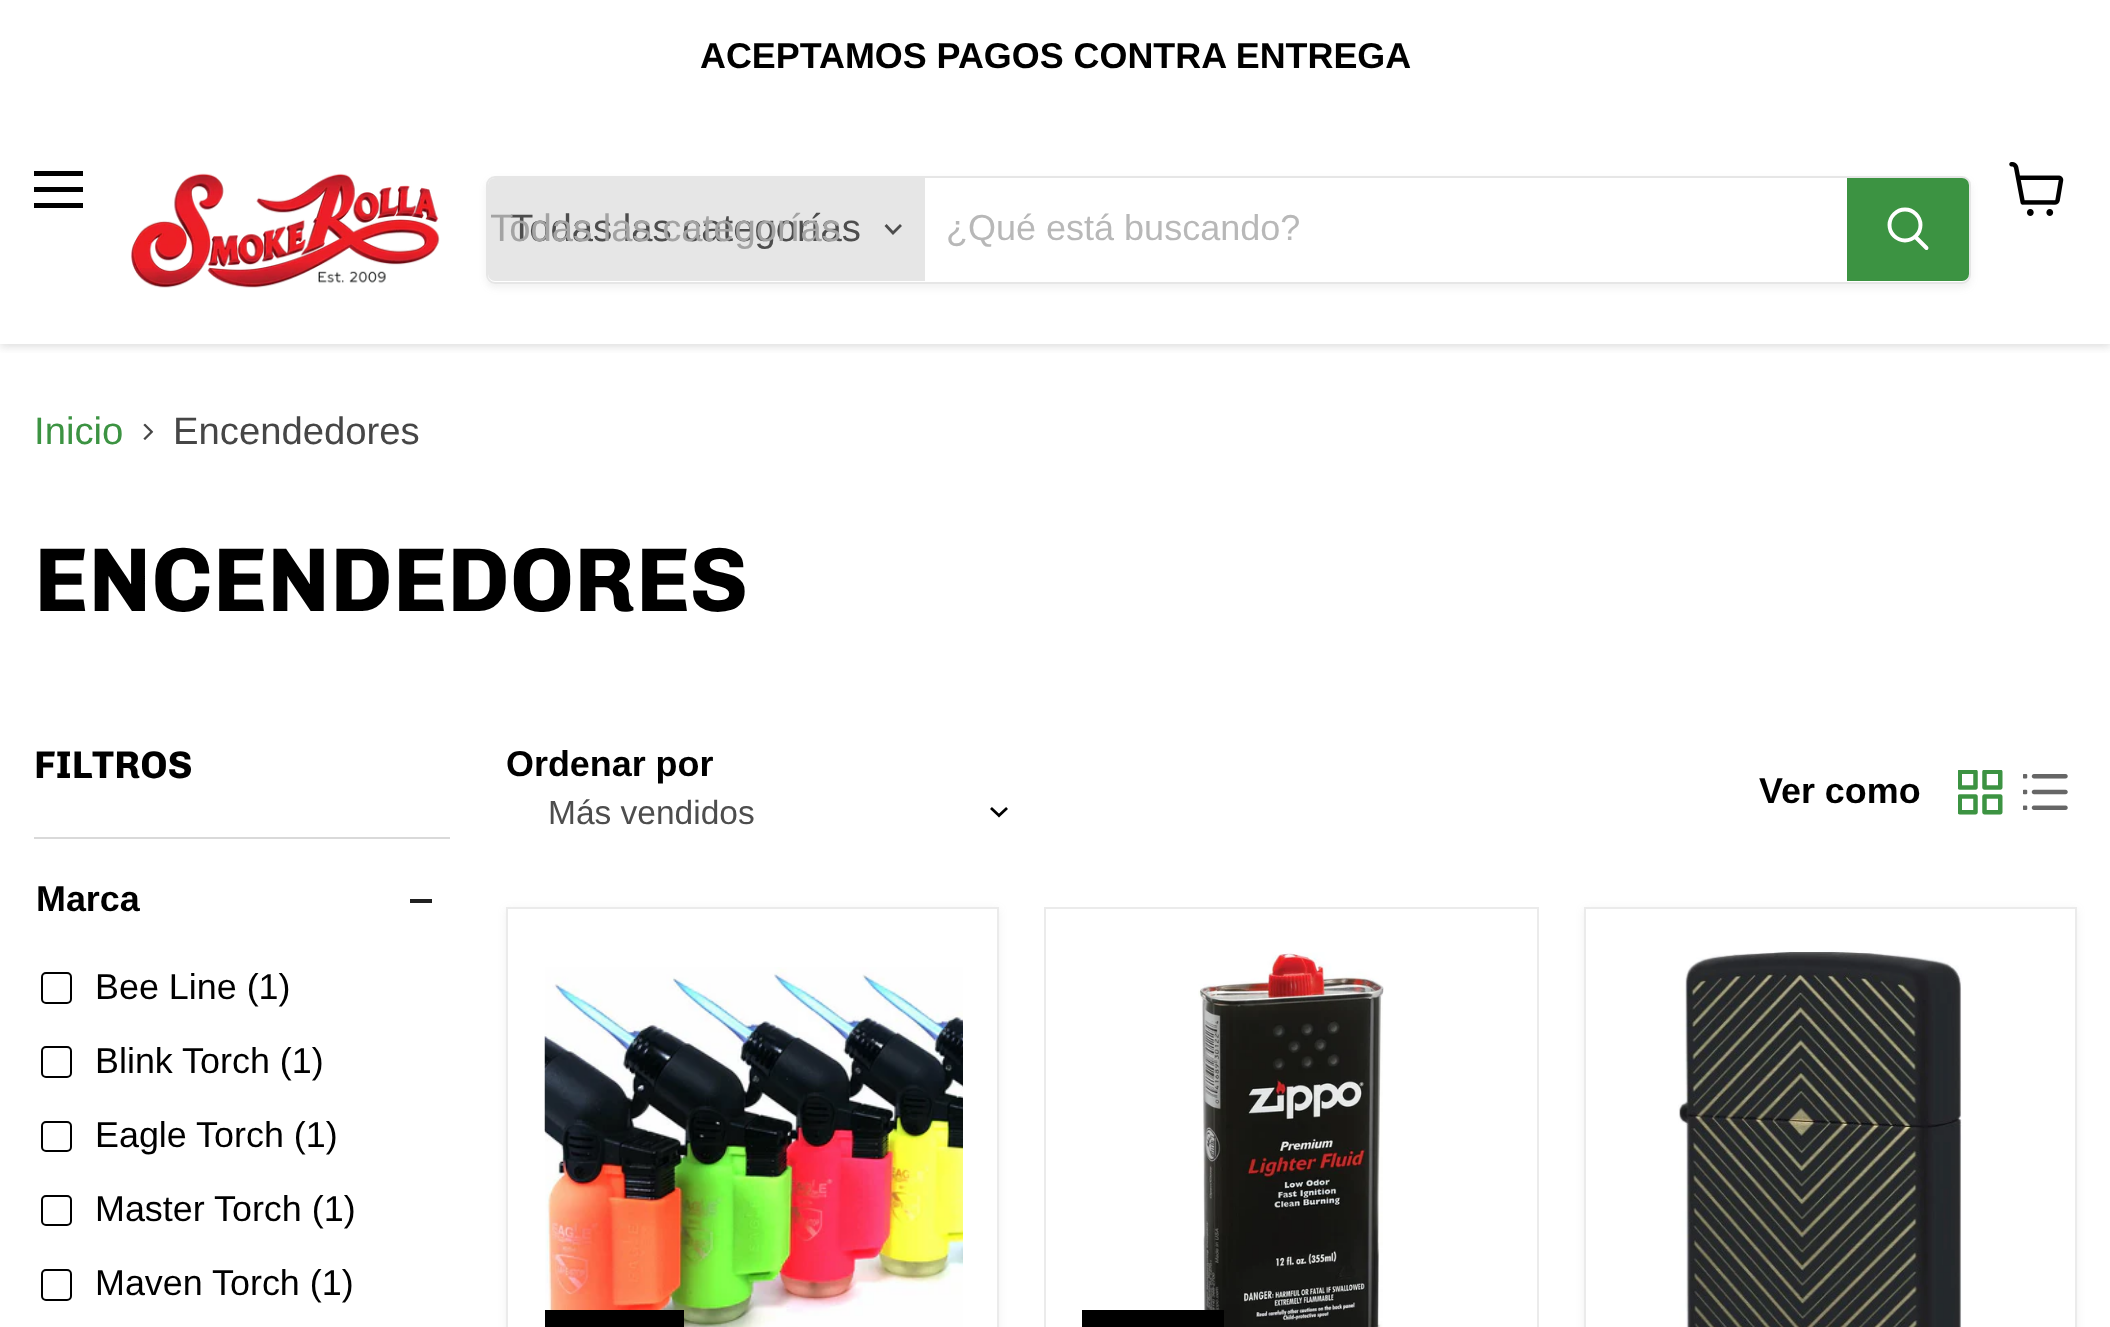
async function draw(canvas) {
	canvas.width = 2110;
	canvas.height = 1327;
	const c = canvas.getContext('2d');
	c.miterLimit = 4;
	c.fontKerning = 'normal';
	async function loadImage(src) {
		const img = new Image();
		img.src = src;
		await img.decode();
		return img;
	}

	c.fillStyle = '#fff';
	c.fillRect(0, 0, 2110, 1327);
	c.save();
	c.beginPath();
	c.rect(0, 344, 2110, 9);
	c.clip();
	c.fillStyle = '#80808040';
	c.filter = 'blur(4.5px)';
	c.beginPath();
	c.rect(0, 117, 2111, 230);
	c.fill();
	c.filter = 'none';
	c.restore();
	c.fillRect(0, 111, 2110, 4);
	c.font = 'bold 35.9px Liberation Sans';
	c.fillStyle = '#000';
	c.fillText('ACEPTAMOS PAGOS CONTRA ENTREGA', 700, 68);
	for (const [x, y, w, h, color] of [
		[34, 171, 49, 5, '#000'],
		[34, 187, 49, 5, '#000'],
		[34, 203, 49, 5, '#000'],
	]) {
		c.fillStyle = color;
		c.fillRect(x, y, w, h);
	}
	c.drawImage(await loadImage('img1.png'), 2009, 162, 55, 54);
	c.drawImage(await loadImage('img2.png'), 130, 173, 310, 115);
	c.save();
	c.beginPath();
	c.moveTo(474, 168);
	c.lineTo(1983, 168);
	c.lineTo(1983, 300);
	c.lineTo(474, 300);
	c.closePath();
	c.moveTo(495, 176);
	c.lineTo(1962, 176);
	c.bezierCurveTo(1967, 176, 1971, 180, 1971, 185);
	c.lineTo(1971, 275);
	c.bezierCurveTo(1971, 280, 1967, 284, 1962, 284);
	c.lineTo(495, 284);
	c.bezierCurveTo(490, 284, 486, 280, 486, 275);
	c.lineTo(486, 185);
	c.bezierCurveTo(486, 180, 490, 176, 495, 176);
	c.closePath();
	c.clip('evenodd');
	c.fillStyle = '#8080801c';
	c.filter = 'blur(3.5px)';
	c.beginPath();
	c.roundRect(486, 180, 1485, 108, 9);
	c.fill();
	c.filter = 'none';
	c.restore();
	c.beginPath();
	c.roundRect(487, 177, 1483, 106, 8);
	c.strokeStyle = '#80808033';
	c.lineWidth = 2;
	c.stroke();
	c.fillStyle = '#e6e6e6';
	c.beginPath();
	c.roundRect(488, 178, 437, 103, [7, 0, 0, 7]);
	c.fill();
	c.font = '38.25px Liberation Sans';
	c.fillStyle = '#4d4d4d';
	c.fillText('Todas las categorías', 510, 241);
	c.save();
	c.beginPath();
	c.rect(491, 207, 432, 43);
	c.clip();
	c.fillStyle = '#a3a3a3';
	c.fillText('Todas las categorías', 490, 241);
	c.restore();
	c.beginPath();
	c.moveTo(893, 233);
	c.lineTo(900, 226);
	c.moveTo(893, 233);
	c.lineTo(886.5, 226);
	c.strokeStyle = '#4d4d4d';
	c.lineWidth = 2.8;
	c.lineCap = 'square';
	c.stroke();
	c.font = '36px Liberation Sans';
	c.fillStyle = '#b8b8b8';
	c.fillText('¿Qué está buscando?', 946, 240);
	c.fillStyle = '#3c9342';
	c.beginPath();
	c.roundRect(1848, 179, 120, 101, [0, 6, 6, 0]);
	c.fill();
	c.strokeStyle = '#3c9342';
	c.lineWidth = 2;
	c.stroke();
	c.beginPath();
	c.moveTo(1926.5, 248);
	c.lineTo(1916, 237.5);
	c.strokeStyle = '#fff';
	c.lineWidth = 3.9;
	c.lineCap = 'round';
	c.stroke();
	c.beginPath();
	c.arc(1905, 225, 15.5, 0, 2 * Math.PI);
	c.stroke();
	c.font = '38.25px Liberation Sans';
	c.fillText('Inicio', 34, 444);
	c.drawImage(await loadImage('img3.png'), 143, 423, 11, 17);
	c.fillStyle = '#464646';
	c.fillText('Encendedores', 173, 444);
	c.font = 'bold 90.75px Chivo';
	c.fillStyle = '#000';
	c.fillText('ENCENDEDORES', 34, 611);
	c.font = 'bold 38.5px Chivo';
	c.fillText('FILTROS', 34, 778);
	c.fillStyle = '#d9d9d9';
	c.fillRect(34, 837, 416, 2);
	c.font = 'bold 35.9px Liberation Sans';
	c.fillStyle = '#000';
	c.fillText('Marca', 36, 911);
	c.fillStyle = '#202020';
	c.fillRect(410, 899, 22, 4);
	c.beginPath();
	c.roundRect(42, 973, 29, 30, 4);
	c.strokeStyle = '#000';
	c.lineWidth = 2;
	c.stroke();
	c.font = '35.9px Liberation Sans';
	c.fillStyle = '#000';
	c.fillText('Bee Line (1)', 95, 999);
	c.beginPath();
	c.roundRect(42, 1047, 29, 30, 4);
	c.stroke();
	c.fillText('Blink Torch (1)', 95, 1073);
	c.beginPath();
	c.roundRect(42, 1122, 29, 29, 4);
	c.stroke();
	c.fillText('Eagle Torch (1)', 95, 1147);
	c.beginPath();
	c.roundRect(42, 1196, 29, 29, 4);
	c.stroke();
	c.fillText('Master Torch (1)', 95, 1221);
	c.beginPath();
	c.roundRect(42, 1270, 29, 30, 4);
	c.stroke();
	c.fillText('Maven Torch (1)', 95, 1295);
	c.font = 'bold 35.9px Liberation Sans';
	c.fillText('Ordenar por', 506, 776);
	c.font = '33.5px Liberation Sans';
	c.fillStyle = '#4d4d4d';
	c.fillText('Más vendidos', 548, 824);
	c.beginPath();
	c.moveTo(999, 815.5);
	c.lineTo(1006, 809);
	c.moveTo(999, 815.5);
	c.lineTo(992, 809);
	c.lineWidth = 2.8;
	c.lineCap = 'square';
	c.stroke();
	c.font = 'bold 35.9px Liberation Sans';
	c.fillStyle = '#000';
	c.fillText('Ver como', 1759, 803);
	c.drawImage(await loadImage('img4.png'), 1958, 770, 45, 45);
	c.drawImage(await loadImage('img5.png'), 2023, 774, 45, 36);
	c.fillStyle = '#8080801c';
	c.filter = 'blur(4.5px)';
	c.beginPath();
	c.rect(506, 909, 493, 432);
	c.fill();
	c.filter = 'none';
	c.fillStyle = '#fff';
	c.beginPath();
	c.rect(507, 908, 491, 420);
	c.fill();
	c.strokeStyle = '#ebebeb';
	c.lineWidth = 2;
	c.stroke();
	c.drawImage(await loadImage('img6.png'), 544, 967, 419, 360);
	c.fillStyle = '#000';
	c.fillRect(545, 1310, 139, 17);
	c.strokeRect(1045, 908, 493, 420);
	c.drawImage(await loadImage('img7.png'), 1198, 952, 186, 375);
	c.fillRect(1082, 1310, 142, 17);
	c.fillStyle = '#8080801c';
	c.filter = 'blur(4.5px)';
	c.beginPath();
	c.rect(1584, 909, 493, 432);
	c.fill();
	c.filter = 'none';
	c.fillStyle = '#fff';
	c.beginPath();
	c.rect(1585, 908, 491, 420);
	c.fill();
	c.stroke();
	c.drawImage(await loadImage('img8.png'), 1678, 950, 284, 377);
}

draw(document.querySelector('canvas'));
